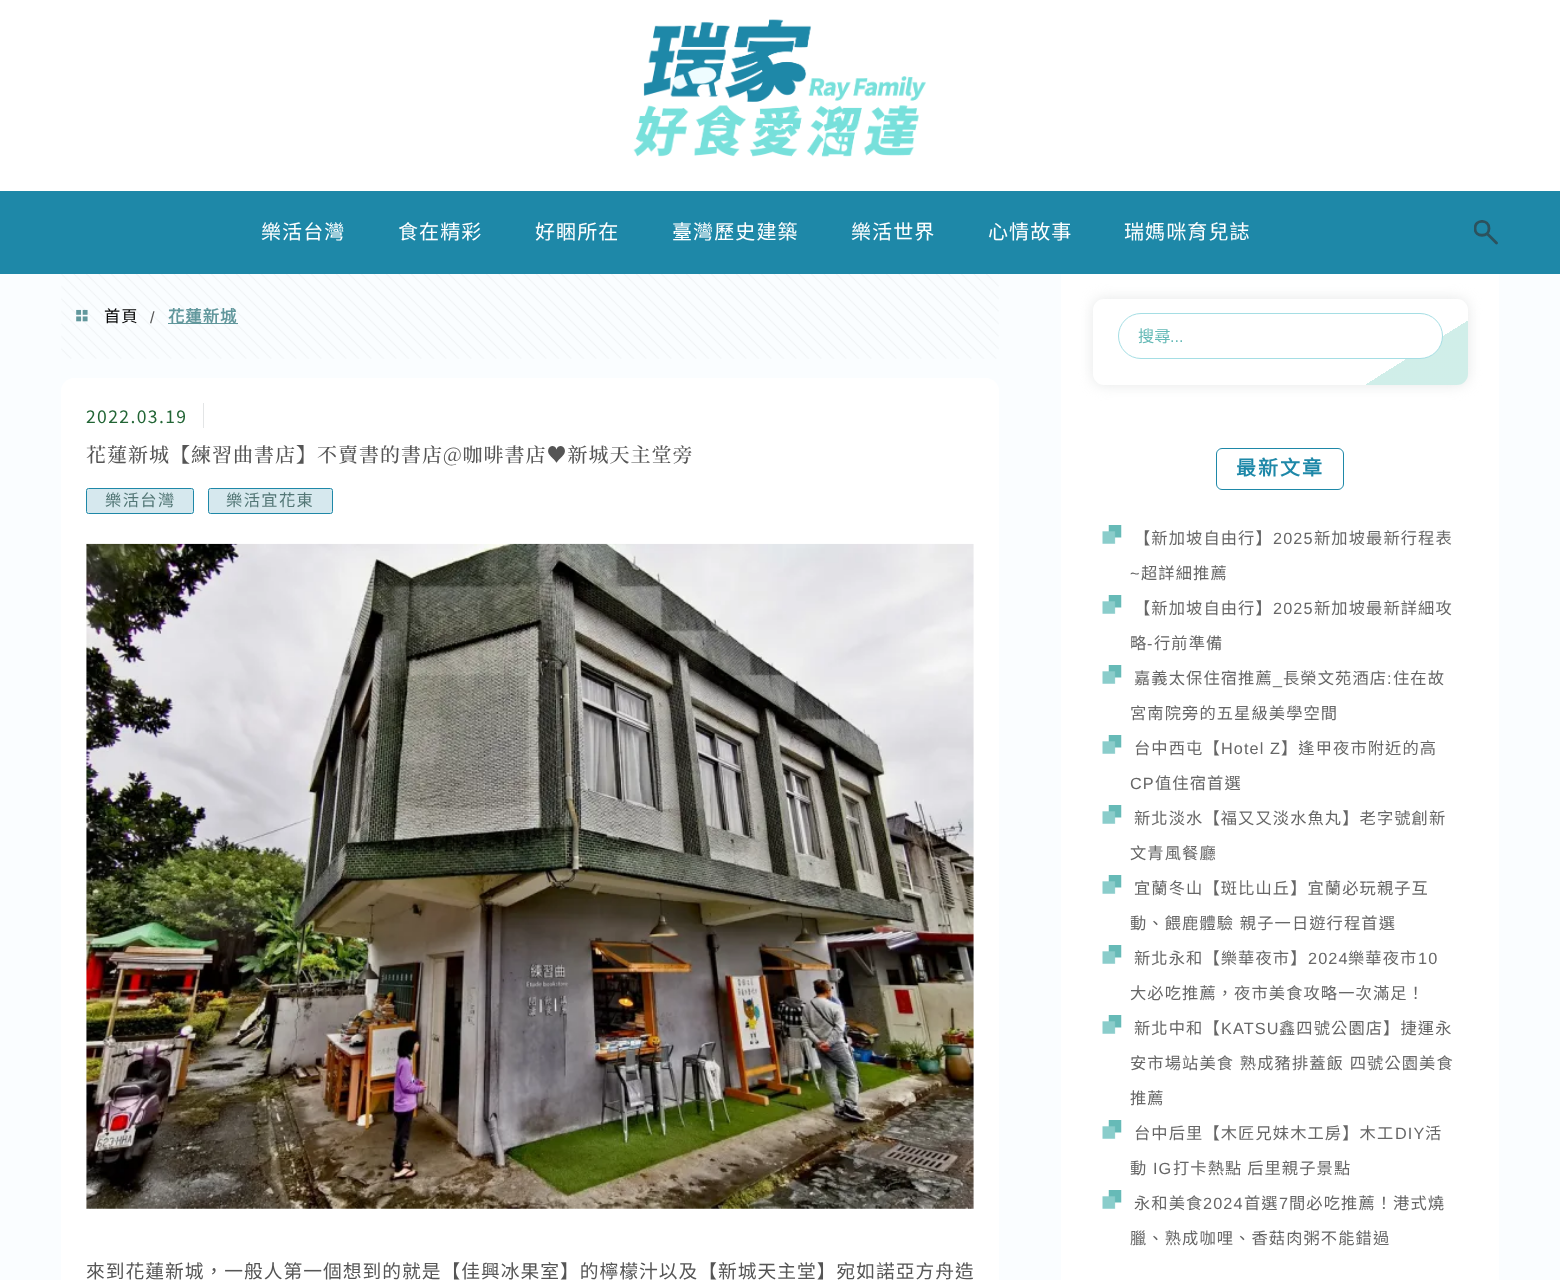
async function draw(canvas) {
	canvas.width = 1560;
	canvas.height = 1280;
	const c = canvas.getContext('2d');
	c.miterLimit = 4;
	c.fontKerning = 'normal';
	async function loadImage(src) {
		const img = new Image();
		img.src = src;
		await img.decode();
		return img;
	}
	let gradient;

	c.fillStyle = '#fafdff';
	c.fillRect(0, 0, 1560, 1280);
	c.fillStyle = '#1e88a8';
	c.fillRect(0, 191, 1560, 83);
	c.fillStyle = '#fff';
	c.fillRect(0, 0, 1560, 191);
	c.drawImage(await loadImage('img1.png'), 633, 19, 293, 138);
	c.letterSpacing = '1.1px';
	c.font = '20px Noto Sans CJK TC';
	for (const [text, x, y] of [
		['樂活台灣', 261, 239],
		['食在精彩', 398, 239],
		['好睏所在', 535, 239],
		['臺灣歷史建築', 672, 239],
		['樂活世界', 851, 239],
		['心情故事', 988, 239],
		['瑞媽咪育兒誌', 1124, 239],
	]) {
		c.fillText(text, x, y);
	}
	c.save();
	c.beginPath();
	c.rect(1474, 220, 25, 25);
	c.clip();
	c.beginPath();
	c.moveTo(1487.5, 234);
	c.lineTo(1496.5, 243);
	c.moveTo(1489, 228.5);
	c.bezierCurveTo(1489, 237.5, 1475, 237.5, 1475, 228.5);
	c.bezierCurveTo(1475, 219, 1489, 219, 1489, 228.5);
	c.closePath();
	c.strokeStyle = '#2c525d';
	c.lineWidth = 2.8;
	c.lineCap = 'round';
	c.stroke();
	c.restore();
	c.drawImage(await loadImage('img2.png'), 61, 274, 938, 85);
	c.drawImage(await loadImage('img3.png'), 76, 309, 12, 13);
	c.font = '16.25px Noto Sans CJK TC';
	c.fillStyle = '#000';
	c.fillText('首頁', 104, 322);
	c.font = '16.25px Liberation Sans';
	c.fillStyle = '#555';
	c.fillText('/', 150, 323);
	c.fillStyle = '#61979c';
	c.fillRect(168, 323, 70, 1);
	c.font = 'bold 16.25px Noto Sans CJK TC';
	c.fillText('花蓮新城', 168, 322);
	c.fillStyle = '#fff';
	c.beginPath();
	c.roundRect(61, 378, 938, 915, 13);
	c.fill();
	c.fillStyle = '#e3e5e6';
	c.fillRect(203, 403, 1, 25);
	c.letterSpacing = '1.4px';
	c.font = '17.5px Noto Sans TC';
	c.fillStyle = '#226535';
	c.fillText('2022.03.19', 86, 423);
	c.letterSpacing = '1px';
	c.font = '500 20px Noto Serif TC';
	c.fillStyle = '#555';
	c.fillText('花蓮新城【練習曲書店】不賣書的書店@咖啡書店♥新城天主堂旁', 86, 462);
	c.fillStyle = '#d6e8ee';
	c.beginPath();
	c.roundRect(86.5, 488.5, 107, 25, 2);
	c.fill();
	c.strokeStyle = '#1e88a8';
	c.stroke();
	c.letterSpacing = '1.4px';
	c.font = '16.25px Noto Sans CJK TC';
	c.fillStyle = '#527675';
	c.fillText('樂活台灣', 105, 506);
	c.fillStyle = '#d6e8ee';
	c.beginPath();
	c.roundRect(208.5, 488.5, 124, 25, 2);
	c.fill();
	c.stroke();
	c.fillStyle = '#527675';
	c.fillText('樂活宜花東', 226, 506);
	c.drawImage(await loadImage('img4.png'), 86, 543, 888, 666);
	c.letterSpacing = '1px';
	c.font = '18.75px Noto Sans TC';
	c.fillStyle = '#555';
	c.fillText('來到花蓮新城，一般人第一個想到的就是【佳興冰果室】的檸檬汁以及【新城天主堂】宛如諾亞方舟造', 86, 1278);
	c.fillStyle = '#fff';
	c.fillRect(1061, 274, 438, 1006);
	c.fillStyle = '#dee1e1cc';
	c.filter = 'blur(7px)';
	c.beginPath();
	c.roundRect(1093, 299, 375, 86, 11);
	c.fill();
	c.filter = 'none';
	c.fillStyle = '#fff';
	c.beginPath();
	c.roundRect(1093, 299, 375, 86, 11);
	c.fill();
	gradient = c.createLinearGradient(1208, 227, 1352, 457);
	gradient.addColorStop(0.8, '#ffffff33');
	gradient.addColorStop(0.8, '#14aa9033');
	c.fillStyle = gradient;
	c.beginPath();
	c.roundRect(1093, 299, 375, 86, 11);
	c.fill();
	c.fillStyle = '#fff';
	c.beginPath();
	c.roundRect(1118.5, 313.5, 324, 45, 22.5);
	c.fill();
	c.strokeStyle = '#a5dee4';
	c.stroke();
	c.letterSpacing = '0px';
	c.font = '16.25px Noto Sans CJK TC';
	c.fillStyle = '#66bab7';
	c.fillText('搜尋', 1138, 342);
	c.font = '16.25px Liberation Sans';
	c.fillText('...', 1170, 342);
	c.beginPath();
	c.roundRect(1216.5, 448.5, 127, 41, 5.5);
	c.strokeStyle = '#1e88a8';
	c.stroke();
	c.letterSpacing = '2px';
	c.font = 'bold 20px Noto Sans CJK TC';
	c.fillStyle = '#1e88a8';
	c.fillText('最新文章', 1236, 475);
	c.drawImage(await loadImage('img5.png'), 1102, 525, 20, 19);
	c.letterSpacing = '1.1px';
	c.font = '16.25px Noto Sans CJK TC';
	c.fillStyle = '#666';
	c.fillText('【新加坡自由行】', 1134, 544);
	c.font = '16.25px Liberation Sans';
	c.fillText('2025', 1273, 544);
	c.font = '16.25px Noto Sans CJK TC';
	c.fillText('新加坡最新行程表', 1314, 544);
	c.font = '16.25px Liberation Sans';
	c.fillText('~', 1130, 579);
	c.font = '16.25px Noto Sans CJK TC';
	c.fillText('超詳細推薦', 1141, 579);
	c.drawImage(await loadImage('img5.png'), 1102, 595, 20, 19);
	c.fillText('【新加坡自由行】', 1134, 614);
	c.font = '16.25px Liberation Sans';
	c.fillText('2025', 1273, 614);
	c.font = '16.25px Noto Sans CJK TC';
	c.fillText('新加坡最新詳細攻', 1314, 614);
	c.fillText('略', 1130, 649);
	c.font = '16.25px Liberation Sans';
	c.fillText('-', 1147, 649);
	c.font = '16.25px Noto Sans CJK TC';
	c.fillText('行前準備', 1154, 649);
	c.drawImage(await loadImage('img5.png'), 1102, 665, 20, 19);
	c.fillText('嘉義太保住宿推薦', 1134, 684);
	c.fillText('長榮文苑酒店', 1283, 684);
	c.font = '16.25px Liberation Sans';
	c.fillText(':', 1387, 684);
	c.font = '16.25px Noto Sans CJK TC';
	c.fillText('住在故', 1393, 684);
	c.font = '16.25px Liberation Sans';
	c.fillText('_', 1273, 684);
	c.font = '16.25px Noto Sans CJK TC';
	c.fillText('宮南院旁的五星級美學空間', 1130, 719);
	c.drawImage(await loadImage('img5.png'), 1102, 735, 20, 19);
	c.fillText('台中西屯【', 1134, 754);
	c.font = '16.25px Liberation Sans';
	c.fillText('Hotel Z', 1221, 754);
	c.font = '16.25px Noto Sans CJK TC';
	c.fillText('】逢甲夜市附近的高', 1281, 754);
	c.font = '16.25px Liberation Sans';
	c.fillText('CP', 1130, 789);
	c.font = '16.25px Noto Sans CJK TC';
	c.fillText('值住宿首選', 1155, 789);
	c.drawImage(await loadImage('img5.png'), 1102, 805, 20, 19);
	c.fillText('新北淡水【福又又淡水魚丸】老字號創新', 1134, 824);
	c.fillText('文青風餐廳', 1130, 859);
	c.drawImage(await loadImage('img5.png'), 1102, 875, 20, 19);
	c.fillText('宜蘭冬山【斑比山丘】宜蘭必玩親子互', 1134, 894);
	c.wordSpacing = '1px';
	c.fillText('動、餵鹿體驗 親子一日遊行程首選', 1130, 929);
	c.drawImage(await loadImage('img5.png'), 1102, 945, 20, 19);
	c.wordSpacing = '0px';
	c.fillText('新北永和【樂華夜市】', 1134, 964);
	c.font = '16.25px Liberation Sans';
	c.fillText('2024', 1308, 964);
	c.font = '16.25px Noto Sans CJK TC';
	c.fillText('樂華夜市', 1348, 964);
	c.font = '16.25px Liberation Sans';
	c.fillText('10', 1418, 964);
	c.font = '16.25px Noto Sans CJK TC';
	c.fillText('大必吃推薦，夜市美食攻略一次滿足！', 1130, 999);
	c.drawImage(await loadImage('img5.png'), 1102, 1015, 20, 19);
	c.fillText('新北中和【', 1134, 1034);
	c.font = '16.25px Liberation Sans';
	c.fillText('KATSU', 1221, 1034);
	c.font = '16.25px Noto Sans CJK TC';
	c.fillText('鑫四號公園店】捷運永', 1279, 1034);
	c.wordSpacing = '1px';
	c.fillText('安市場站美食 熟成豬排蓋飯 四號公園美食', 1130, 1069);
	c.wordSpacing = '0px';
	c.fillText('推薦', 1130, 1104);
	c.drawImage(await loadImage('img5.png'), 1102, 1120, 20, 19);
	c.fillText('台中后里【木匠兄妹木工房】木工', 1134, 1139);
	c.font = '16.25px Liberation Sans';
	c.fillText('DIY', 1395, 1139);
	c.font = '16.25px Noto Sans CJK TC';
	c.fillText('活', 1425, 1139);
	c.fillText('動', 1130, 1174);
	c.font = '16.25px Liberation Sans';
	c.fillText('IG', 1153, 1174);
	c.font = '16.25px Noto Sans CJK TC';
	c.fillText('打卡熱點 后里親子景點', 1173, 1174);
	c.drawImage(await loadImage('img5.png'), 1102, 1190, 20, 19);
	c.fillText('永和美食', 1134, 1209);
	c.font = '16.25px Liberation Sans';
	c.fillText('2024', 1203, 1209);
	c.font = '16.25px Noto Sans CJK TC';
	c.fillText('首選', 1244, 1209);
	c.font = '16.25px Liberation Sans';
	c.fillText('7', 1279, 1209);
	c.font = '16.25px Noto Sans CJK TC';
	c.fillText('間必吃推薦！港式燒', 1289, 1209);
	c.fillText('臘、熟成咖哩、香菇肉粥不能錯過', 1130, 1244);
}

draw(document.querySelector('canvas'));
